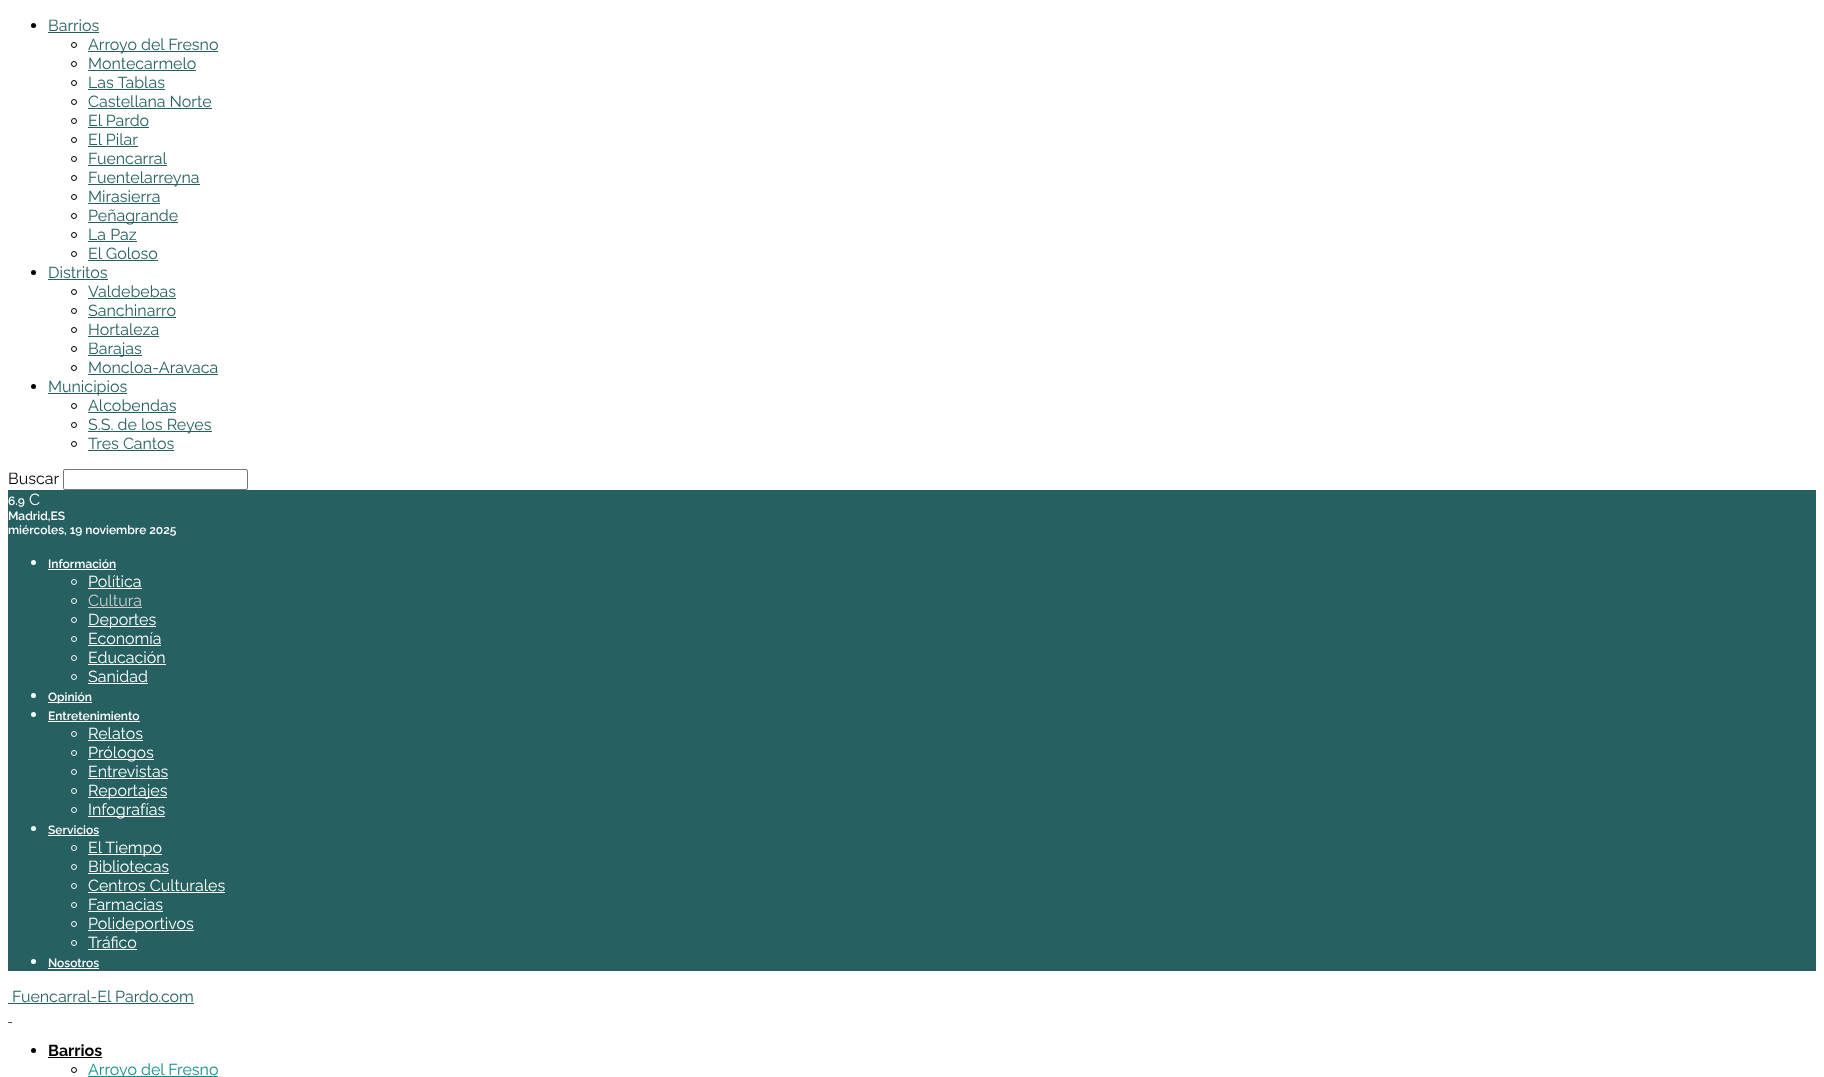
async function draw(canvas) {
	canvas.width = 1824;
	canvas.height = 1077;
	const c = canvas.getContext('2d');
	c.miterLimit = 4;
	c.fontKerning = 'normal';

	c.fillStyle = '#fff';
	c.fillRect(0, 0, 1824, 1077);
	c.fillStyle = '#000';
	c.beginPath();
	c.arc(33.5, 25.5, 2.5, 0, 2 * Math.PI);
	c.fill();
	c.font = '16px Raleway';
	c.fillStyle = '#266060';
	c.fillText('Barrios', 48, 31);
	c.fillRect(48, 32, 51, 1);
	c.beginPath();
	c.arc(74, 45, 2.5, 0, 2 * Math.PI);
	c.strokeStyle = '#000';
	c.stroke();
	c.fillRect(88, 51, 130, 1);
	c.fillText('Arroyo del Fresno', 88, 50);
	c.beginPath();
	c.arc(74, 64, 2.5, 0, 2 * Math.PI);
	c.stroke();
	c.fillText('Montecarmelo', 88, 69);
	c.fillRect(88, 70, 108, 1);
	c.beginPath();
	c.arc(74, 83, 2.5, 0, 2 * Math.PI);
	c.stroke();
	c.fillText('Las Tablas', 88, 88);
	c.fillRect(88, 89, 77, 1);
	c.beginPath();
	c.arc(74, 102, 2.5, 0, 2 * Math.PI);
	c.stroke();
	c.fillText('Castellana Norte', 88, 107);
	c.fillRect(88, 108, 124, 1);
	c.beginPath();
	c.arc(74, 121, 2.5, 0, 2 * Math.PI);
	c.stroke();
	c.fillText('El Pardo', 88, 126);
	c.fillRect(88, 127, 61, 1);
	c.beginPath();
	c.arc(74, 140, 2.5, 0, 2 * Math.PI);
	c.stroke();
	c.fillText('El Pilar', 88, 145);
	c.fillRect(88, 146, 50, 1);
	c.beginPath();
	c.arc(74, 159, 2.5, 0, 2 * Math.PI);
	c.stroke();
	c.fillText('Fuencarral', 88, 164);
	c.fillRect(88, 165, 79, 1);
	c.beginPath();
	c.arc(74, 178, 2.5, 0, 2 * Math.PI);
	c.stroke();
	c.fillRect(88, 184, 112, 1);
	c.fillText('Fuentelarreyna', 88, 183);
	c.beginPath();
	c.arc(74, 197, 2.5, 0, 2 * Math.PI);
	c.stroke();
	c.fillText('Mirasierra', 88, 202);
	c.fillRect(88, 203, 72, 1);
	c.beginPath();
	c.arc(74, 216, 2.5, 0, 2 * Math.PI);
	c.stroke();
	c.fillRect(88, 222, 90, 1);
	c.fillText('Peñagrande', 88, 221);
	c.beginPath();
	c.arc(74, 235, 2.5, 0, 2 * Math.PI);
	c.stroke();
	c.fillText('La Paz', 88, 240);
	c.fillRect(88, 241, 49, 1);
	c.beginPath();
	c.arc(74, 254, 2.5, 0, 2 * Math.PI);
	c.stroke();
	c.fillText('El Goloso', 88, 259);
	c.fillRect(88, 260, 70, 1);
	c.fillStyle = '#000';
	c.beginPath();
	c.arc(33.5, 272.5, 2.5, 0, 2 * Math.PI);
	c.fill();
	c.fillStyle = '#266060';
	c.fillText('Distritos', 48, 278);
	c.fillRect(48, 279, 60, 1);
	c.beginPath();
	c.arc(74, 292, 2.5, 0, 2 * Math.PI);
	c.stroke();
	c.fillText('Valdebebas', 88, 297);
	c.fillRect(88, 298, 88, 1);
	c.beginPath();
	c.arc(74, 311, 2.5, 0, 2 * Math.PI);
	c.stroke();
	c.fillText('Sanchinarro', 88, 316);
	c.fillRect(88, 317, 88, 1);
	c.beginPath();
	c.arc(74, 330, 2.5, 0, 2 * Math.PI);
	c.stroke();
	c.fillText('Hortaleza', 88, 335);
	c.fillRect(88, 336, 71, 1);
	c.beginPath();
	c.arc(74, 349, 2.5, 0, 2 * Math.PI);
	c.stroke();
	c.fillRect(88, 355, 54, 1);
	c.fillText('Barajas', 88, 354);
	c.beginPath();
	c.arc(74, 368, 2.5, 0, 2 * Math.PI);
	c.stroke();
	c.fillText('Moncloa-Aravaca', 88, 373);
	c.fillRect(88, 374, 130, 1);
	c.fillStyle = '#000';
	c.beginPath();
	c.arc(33.5, 386.5, 2.5, 0, 2 * Math.PI);
	c.fill();
	c.fillStyle = '#266060';
	c.fillRect(48, 393, 79, 1);
	c.fillText('Municipios', 48, 392);
	c.beginPath();
	c.arc(74, 406, 2.5, 0, 2 * Math.PI);
	c.stroke();
	c.fillText('Alcobendas', 88, 411);
	c.fillRect(88, 412, 88, 1);
	c.beginPath();
	c.arc(74, 425, 2.5, 0, 2 * Math.PI);
	c.stroke();
	c.fillRect(88, 431, 124, 1);
	c.fillText('S.S. de los Reyes', 88, 430);
	c.beginPath();
	c.arc(74, 444, 2.5, 0, 2 * Math.PI);
	c.stroke();
	c.fillText('Tres Cantos', 88, 449);
	c.fillRect(88, 450, 86, 1);
	c.fillStyle = '#000';
	c.fillText('Buscar', 8, 484);
	c.beginPath();
	c.roundRect(63.5, 469.5, 184, 20, 1.5);
	c.strokeStyle = '#767676';
	c.stroke();
	c.fillStyle = '#266060';
	c.fillRect(8, 490, 1808, 481);
	c.font = '600 12px Raleway';
	c.fillStyle = '#fff';
	c.fillText('6.9', 8, 505);
	c.font = '16px Raleway';
	c.fillText('C', 29, 505);
	c.font = '600 12px Raleway';
	c.fillText('Madrid,ES', 8, 520);
	c.fillText('miércoles, 19 noviembre 2025', 8, 534);
	c.beginPath();
	c.arc(33.5, 562.5, 2.5, 0, 2 * Math.PI);
	c.fill();
	c.fillText('Información', 48, 568);
	c.fillRect(48, 569, 68, 1);
	c.beginPath();
	c.arc(74, 582, 2.5, 0, 2 * Math.PI);
	c.strokeStyle = '#fff';
	c.stroke();
	c.font = '16px Raleway';
	c.fillText('Política', 88, 587);
	c.fillRect(88, 588, 54, 1);
	c.beginPath();
	c.arc(74, 601, 2.5, 0, 2 * Math.PI);
	c.stroke();
	c.fillStyle = '#ccc';
	c.fillText('Cultura', 88, 606);
	c.fillRect(88, 607, 54, 1);
	c.beginPath();
	c.arc(74, 620, 2.5, 0, 2 * Math.PI);
	c.stroke();
	c.fillStyle = '#fff';
	c.fillRect(88, 626, 68, 1);
	c.fillText('Deportes', 88, 625);
	c.beginPath();
	c.arc(74, 639, 2.5, 0, 2 * Math.PI);
	c.stroke();
	c.fillText('Economía', 88, 644);
	c.fillRect(88, 645, 73, 1);
	c.beginPath();
	c.arc(74, 658, 2.5, 0, 2 * Math.PI);
	c.stroke();
	c.fillText('Educación', 88, 663);
	c.fillRect(88, 664, 78, 1);
	c.beginPath();
	c.arc(74, 677, 2.5, 0, 2 * Math.PI);
	c.stroke();
	c.fillText('Sanidad', 88, 682);
	c.fillRect(88, 683, 60, 1);
	c.beginPath();
	c.arc(33.5, 695.5, 2.5, 0, 2 * Math.PI);
	c.fill();
	c.fillRect(48, 702, 44, 1);
	c.font = '600 12px Raleway';
	c.fillText('Opinión', 48, 701);
	c.beginPath();
	c.arc(33.5, 714.5, 2.5, 0, 2 * Math.PI);
	c.fill();
	c.fillText('Entretenimiento', 48, 720);
	c.fillRect(48, 721, 92, 1);
	c.beginPath();
	c.arc(74, 734, 2.5, 0, 2 * Math.PI);
	c.stroke();
	c.font = '16px Raleway';
	c.fillText('Relatos', 88, 739);
	c.fillRect(88, 740, 55, 1);
	c.beginPath();
	c.arc(74, 753, 2.5, 0, 2 * Math.PI);
	c.stroke();
	c.fillRect(88, 759, 66, 1);
	c.fillText('Prólogos', 88, 758);
	c.beginPath();
	c.arc(74, 772, 2.5, 0, 2 * Math.PI);
	c.stroke();
	c.fillText('Entrevistas', 88, 777);
	c.fillRect(88, 778, 80, 1);
	c.beginPath();
	c.arc(74, 791, 2.5, 0, 2 * Math.PI);
	c.stroke();
	c.fillRect(88, 797, 79, 1);
	c.fillText('Reportajes', 88, 796);
	c.beginPath();
	c.arc(74, 810, 2.5, 0, 2 * Math.PI);
	c.stroke();
	c.fillRect(88, 816, 77, 1);
	c.fillText('Infografías', 88, 815);
	c.beginPath();
	c.arc(33.5, 828.5, 2.5, 0, 2 * Math.PI);
	c.fill();
	c.font = '600 12px Raleway';
	c.fillText('Servicios', 48, 834);
	c.fillRect(48, 835, 51, 1);
	c.beginPath();
	c.arc(74, 848, 2.5, 0, 2 * Math.PI);
	c.stroke();
	c.fillRect(88, 854, 74, 1);
	c.font = '16px Raleway';
	c.fillText('El Tiempo', 88, 853);
	c.beginPath();
	c.arc(74, 867, 2.5, 0, 2 * Math.PI);
	c.stroke();
	c.fillText('Bibliotecas', 88, 872);
	c.fillRect(88, 873, 81, 1);
	c.beginPath();
	c.arc(74, 886, 2.5, 0, 2 * Math.PI);
	c.stroke();
	c.fillText('Centros Culturales', 88, 891);
	c.fillRect(88, 892, 137, 1);
	c.beginPath();
	c.arc(74, 905, 2.5, 0, 2 * Math.PI);
	c.stroke();
	c.fillText('Farmacias', 88, 910);
	c.fillRect(88, 911, 75, 1);
	c.beginPath();
	c.arc(74, 924, 2.5, 0, 2 * Math.PI);
	c.stroke();
	c.fillRect(88, 930, 106, 1);
	c.fillText('Polideportivos', 88, 929);
	c.beginPath();
	c.arc(74, 943, 2.5, 0, 2 * Math.PI);
	c.stroke();
	c.fillText('Tráfico', 88, 948);
	c.fillRect(88, 949, 49, 1);
	c.beginPath();
	c.arc(33.5, 961.5, 2.5, 0, 2 * Math.PI);
	c.fill();
	c.font = '600 12px Raleway';
	c.fillText('Nosotros', 48, 967);
	c.fillRect(48, 968, 51, 1);
	c.font = '16px Raleway';
	c.fillStyle = '#266060';
	c.fillText('Fuencarral-El Pardo.com', 12, 1002);
	c.fillRect(8, 1003, 186, 1);
	c.fillRect(8, 1022, 4, 1);
	c.fillStyle = '#000';
	c.beginPath();
	c.arc(33.5, 1050.5, 2.5, 0, 2 * Math.PI);
	c.fill();
	c.font = 'bold 16px Raleway';
	c.fillText('Barrios', 48, 1056);
	c.fillRect(48, 1057, 54, 1);
	c.beginPath();
	c.arc(74, 1070, 2.5, 0, 2 * Math.PI);
	c.strokeStyle = '#000';
	c.stroke();
	c.fillStyle = '#108f8b';
	c.fillRect(88, 1076, 130, 1);
	c.font = '16px Raleway';
	c.fillText('Arroyo del Fresno', 88, 1075);
}

draw(document.querySelector('canvas'));
